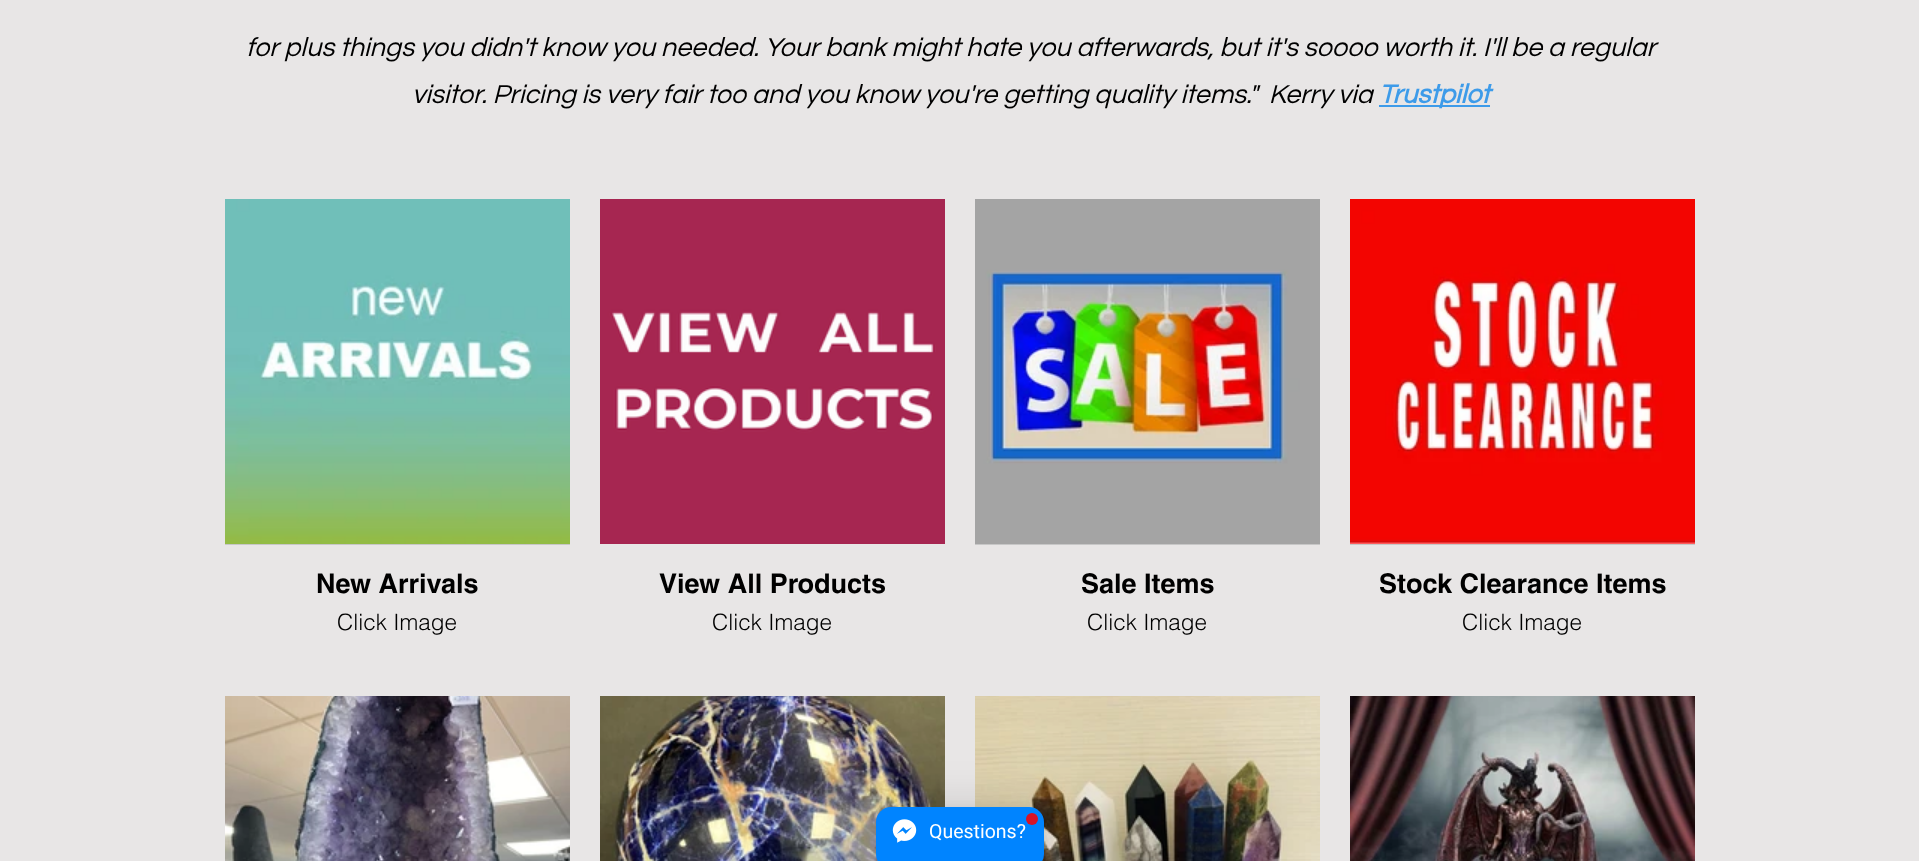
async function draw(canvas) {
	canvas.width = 1919;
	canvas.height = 861;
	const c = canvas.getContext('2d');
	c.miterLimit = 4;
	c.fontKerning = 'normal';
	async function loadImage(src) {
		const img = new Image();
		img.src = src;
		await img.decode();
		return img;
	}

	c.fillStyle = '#e8e6e6';
	c.fillRect(0, 0, 1919, 861);
	c.font = 'italic 27px Questrial';
	c.fillStyle = '#000';
	c.fillText('for plus things you didn\'t know you needed. Your bank might hate you afterwards, but it\'s soooo worth it. I\'ll be a regular', 246, 56);
	c.fillText('visitor. Pricing is very fair too and you know you\'re getting quality items."  Kerry via', 412, 103);
	c.fillStyle = '#3d9be9';
	c.fillRect(1379, 105, 111, 2);
	c.font = 'italic bold 27px Questrial';
	c.fillText('Trustpilot', 1379, 103);
	c.fillStyle = '#c7c7c7';
	c.fillRect(225, 544, 345, 1);
	c.drawImage(await loadImage('img1.png'), 225, 199, 345, 345);
	c.font = 'bold 27px helvetica';
	c.fillStyle = '#000';
	c.fillText('New Arrivals', 316, 593);
	c.font = '300 22.5px helvetica';
	c.fillText('Click Image', 337, 630);
	c.drawImage(await loadImage('img2.png'), 600, 199, 345, 345);
	c.font = 'bold 27px helvetica';
	c.fillText('View All Products', 659, 593);
	c.font = '300 22.5px helvetica';
	c.fillText('Click Image', 712, 630);
	c.fillStyle = '#c7c7c7';
	c.fillRect(975, 544, 345, 1);
	c.drawImage(await loadImage('img3.png'), 975, 199, 345, 345);
	c.font = 'bold 27px helvetica';
	c.fillStyle = '#000';
	c.fillText('Sale Items', 1081, 593);
	c.font = '300 22.5px helvetica';
	c.fillText('Click Image', 1087, 630);
	c.fillStyle = '#c7c7c7';
	c.fillRect(1350, 544, 345, 1);
	c.drawImage(await loadImage('img4.png'), 1350, 199, 345, 345);
	c.font = 'bold 27px helvetica';
	c.fillStyle = '#000';
	c.fillText('Stock Clearance Items', 1379, 593);
	c.font = '300 22.5px helvetica';
	c.fillText('Click Image', 1462, 630);
	c.drawImage(await loadImage('img5.png'), 225, 696, 345, 165);
	c.drawImage(await loadImage('img6.png'), 600, 696, 345, 165);
	c.drawImage(await loadImage('img7.png'), 975, 696, 345, 165);
	c.drawImage(await loadImage('img8.png'), 1350, 696, 345, 165);
	c.fillStyle = '#00000029';
	c.filter = 'blur(24px)';
	c.beginPath();
	c.roundRect(876, 810, 168, 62, 15);
	c.fill();
	c.filter = 'none';
	c.fillStyle = '#0000000f';
	c.filter = 'blur(4.5px)';
	c.beginPath();
	c.roundRect(876, 809, 168, 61, 15);
	c.fill();
	c.filter = 'none';
	c.fillStyle = '#0084ff';
	c.beginPath();
	c.roundRect(876, 807, 168, 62, 15);
	c.fill();
	c.drawImage(await loadImage('img9.png'), 892, 819, 25, 24);
	c.font = '19.5px Roboto';
	c.fillStyle = '#fff';
	c.fillText('Questions?', 929, 838);
	c.fillStyle = '#d91426';
	c.beginPath();
	c.arc(1032, 819, 6, 0, 2 * Math.PI);
	c.fill();
}

draw(document.querySelector('canvas'));
